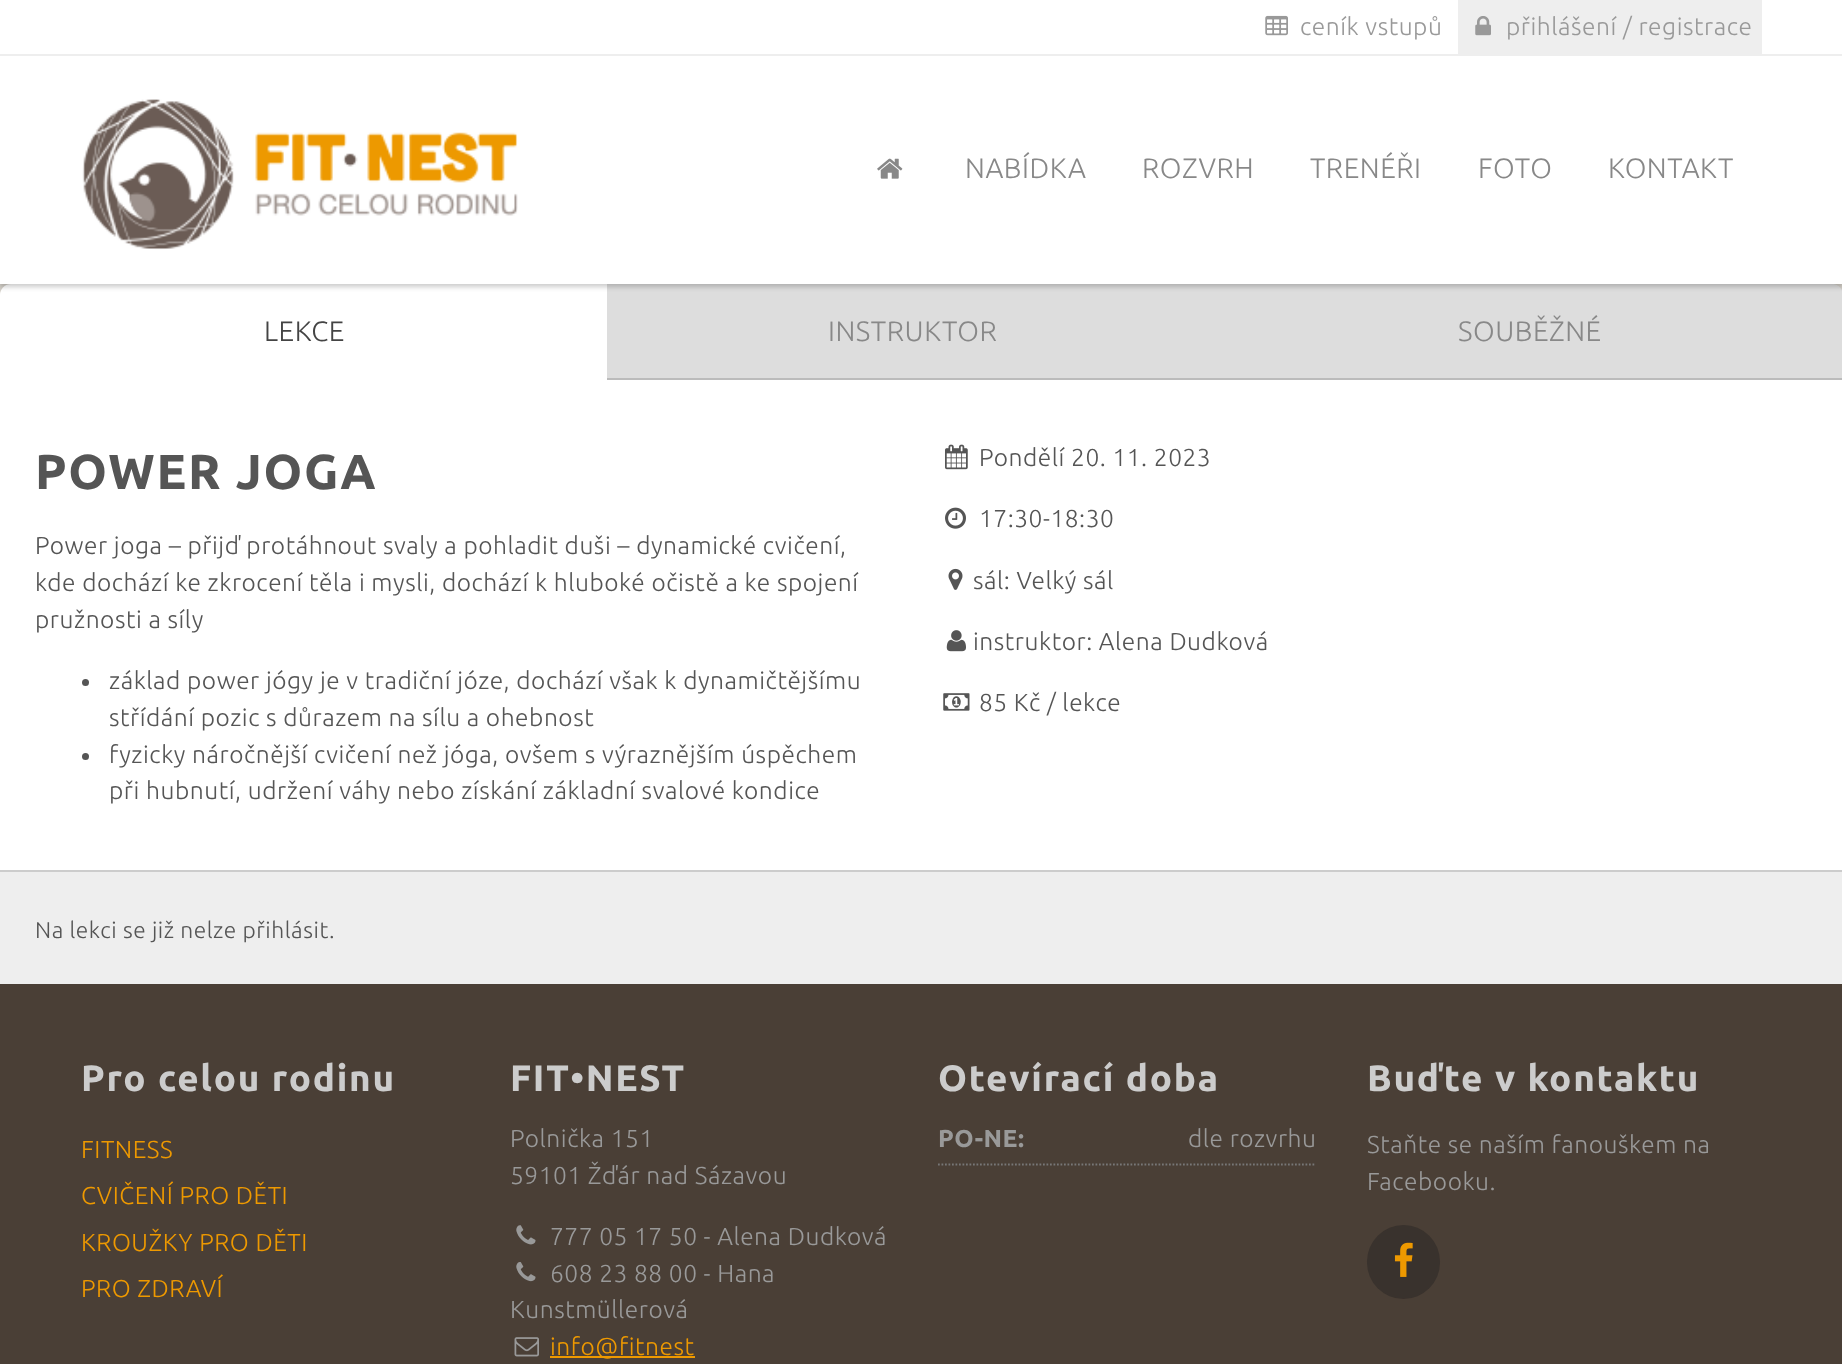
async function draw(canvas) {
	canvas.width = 1842;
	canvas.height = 1364;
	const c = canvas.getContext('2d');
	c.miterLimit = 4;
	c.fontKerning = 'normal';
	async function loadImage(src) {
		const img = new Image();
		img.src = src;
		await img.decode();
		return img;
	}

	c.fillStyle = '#fff';
	c.fillRect(0, 0, 1842, 1364);
	c.drawImage(await loadImage('img1.png'), 0, 284, 1842, 11);
	c.beginPath();
	c.roundRect(0, 284, 607, 96, [11, 0, 0, 0]);
	c.fill();
	c.fillStyle = '#ddd';
	c.fillRect(607, 284, 609, 94);
	c.beginPath();
	c.moveTo(1216, 284);
	c.lineTo(1832, 284);
	c.bezierCurveTo(1838, 284, 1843, 289, 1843, 295);
	c.lineTo(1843, 380);
	c.lineTo(1216, 380);
	c.closePath();
	c.fill();
	c.fillStyle = '#00000033';
	c.filter = 'blur(2.5px)';
	c.beginPath();
	c.rect(0, 4, 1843, 283);
	c.fill();
	c.filter = 'none';
	c.fillStyle = '#fff';
	c.fillRect(0, 0, 1842, 284);
	c.fillStyle = '#eee';
	c.fillRect(0, 54, 1842, 2);
	c.drawImage(await loadImage('img2.png'), 1265, 15, 23, 21);
	c.letterSpacing = '0.53px';
	c.font = '300 24.5px Ubuntu';
	c.fillStyle = '#999';
	c.fillText('ceník vstupů', 1300, 35);
	c.fillStyle = '#eee';
	c.fillRect(1458, 0, 304, 54);
	c.drawImage(await loadImage('img3.png'), 1475, 16, 16, 20);
	c.fillStyle = '#999';
	c.fillText('přihlášení / registrace', 1506, 35);
	c.drawImage(await loadImage('img4.png'), 82, 99, 436, 151);
	c.drawImage(await loadImage('img5.png'), 877, 158, 26, 21);
	c.font = '300 28px Ubuntu';
	c.fillStyle = '#888';
	for (const [text, x, y] of [
		['NABÍDKA', 965, 178],
		['ROZVRH', 1142, 178],
		['TRENÉŘI', 1310, 178],
		['FOTO', 1478, 178],
		['KONTAKT', 1608, 178],
	]) {
		c.fillText(text, x, y);
	}
	c.fillStyle = '#444';
	c.fillText('LEKCE', 264, 341);
	c.fillStyle = '#bbb';
	c.fillRect(607, 378, 609, 2);
	c.fillStyle = '#888';
	c.fillText('INSTRUKTOR', 828, 341);
	c.fillStyle = '#bbb';
	c.fillRect(1216, 378, 626, 2);
	c.fillStyle = '#888';
	c.fillText('SOUBĚŽNÉ', 1458, 341);
	c.letterSpacing = '1.75px';
	c.font = 'bold 49px Ubuntu';
	c.fillStyle = '#555';
	c.fillText('POWER JOGA', 35, 489);
	c.letterSpacing = '0.53px';
	c.font = '300 24.5px Ubuntu';
	for (const [text, x, y] of [
		['Power joga – přijď protáhnout svaly a pohladit duši – dynamické cvičení,', 35, 554],
		['kde dochází ke zkrocení těla i mysli, dochází k hluboké očistě a ke spojení', 35, 591],
		['pružnosti a síly', 35, 628],
	]) {
		c.fillText(text, x, y);
	}
	c.beginPath();
	c.arc(85.5, 682.5, 3.5, 0, 2 * Math.PI);
	c.fill();
	c.fillText('základ power jógy je v tradiční józe, dochází však k dynamičtějšímu', 109, 689);
	c.fillText('střídání pozic s důrazem na sílu a ohebnost', 109, 726);
	c.beginPath();
	c.arc(85.5, 756.5, 3.5, 0, 2 * Math.PI);
	c.fill();
	c.fillText('fyzicky náročnější cvičení než jóga, ovšem s výraznějším úspěchem', 109, 763);
	c.fillText('při hubnutí, udržení váhy nebo získání základní svalové kondice', 109, 799);
	c.drawImage(await loadImage('img6.png'), 945, 444, 23, 26);
	c.fillText('Pondělí 20. 11. 2023', 979, 466);
	c.drawImage(await loadImage('img7.png'), 945, 507, 21, 22);
	c.fillText('17:30-18:30', 979, 527);
	c.drawImage(await loadImage('img8.png'), 948, 568, 15, 22);
	c.fillText('sál: Velký sál', 973, 589);
	c.drawImage(await loadImage('img9.png'), 946, 630, 20, 22);
	c.fillText('instruktor: Alena Dudková', 973, 650);
	c.drawImage(await loadImage('img10.png'), 943, 693, 27, 18);
	c.fillText('85 Kč / lekce', 979, 711);
	c.fillStyle = '#eee';
	c.fillRect(0, 872, 1842, 112);
	c.fillStyle = '#ccc';
	c.fillRect(0, 870, 1842, 2);
	c.font = '300 22.75px Ubuntu';
	c.fillStyle = '#555';
	c.fillText('Na lekci se již nelze přihlásit.', 35, 938);
	c.fillStyle = '#4a3f36';
	c.fillRect(0, 984, 1842, 380);
	c.letterSpacing = '1.75px';
	c.font = 'bold 36.75px Ubuntu';
	c.fillStyle = '#ccc';
	c.fillText('Pro celou rodinu', 81, 1091);
	c.letterSpacing = '0.53px';
	c.font = '300 24.5px Ubuntu';
	c.fillStyle = '#e90';
	for (const [text, x, y] of [
		['FITNESS', 81, 1158],
		['CVIČENÍ PRO DĚTI', 81, 1204],
		['KROUŽKY PRO DĚTI', 81, 1251],
		['PRO ZDRAVÍ', 81, 1297],
	]) {
		c.fillText(text, x, y);
	}
	c.letterSpacing = '1.75px';
	c.font = 'bold 36.75px Ubuntu';
	c.fillStyle = '#ccc';
	c.fillText('FIT•NEST', 510, 1091);
	c.letterSpacing = '0.53px';
	c.font = '300 24.5px Ubuntu';
	c.fillStyle = '#999';
	c.fillText('Polnička 151', 510, 1147);
	c.fillText('59101 Žďár nad Sázavou', 510, 1184);
	c.drawImage(await loadImage('img11.png'), 516, 1225, 20, 20);
	c.fillText('777 05 17 50 - Alena Dudková', 550, 1245);
	c.drawImage(await loadImage('img12.png'), 516, 1262, 20, 20);
	c.fillText('608 23 88 00 - Hana', 550, 1282);
	c.fillText('Kunstmüllerová', 510, 1318);
	c.drawImage(await loadImage('img13.png'), 514, 1337, 25, 20);
	c.fillStyle = '#e90';
	c.fillRect(550, 1356, 145, 2);
	c.fillText('info@fitnest', 550, 1355);
	c.letterSpacing = '1.75px';
	c.font = 'bold 36.75px Ubuntu';
	c.fillStyle = '#ccc';
	c.fillText('Otevírací doba', 938, 1091);
	c.beginPath();
	c.moveTo(938, 1164.5);
	c.lineTo(1316, 1164.5);
	c.strokeStyle = '#777';
	c.lineWidth = 1.8;
	c.setLineDash([1.75, 1.75]);
	c.stroke();
	c.letterSpacing = '0.53px';
	c.font = 'bold 24.5px Ubuntu';
	c.fillStyle = '#999';
	c.fillText('PO-NE:', 938, 1147);
	c.font = '300 24.5px Ubuntu';
	c.fillText('dle rozvrhu', 1188, 1147);
	c.letterSpacing = '1.75px';
	c.font = 'bold 36.75px Ubuntu';
	c.fillStyle = '#ccc';
	c.fillText('Buďte v kontaktu', 1367, 1091);
	c.letterSpacing = '0.53px';
	c.font = '300 24.5px Ubuntu';
	c.fillStyle = '#999';
	c.fillText('Staňte se naším fanouškem na', 1367, 1153);
	c.fillText('Facebooku.', 1367, 1190);
	c.fillStyle = '#39322d';
	c.beginPath();
	c.roundRect(1367, 1225, 73, 74, 36.5);
	c.fill();
	c.drawImage(await loadImage('img14.png'), 1394, 1242, 19, 35);
}

draw(document.querySelector('canvas'));
